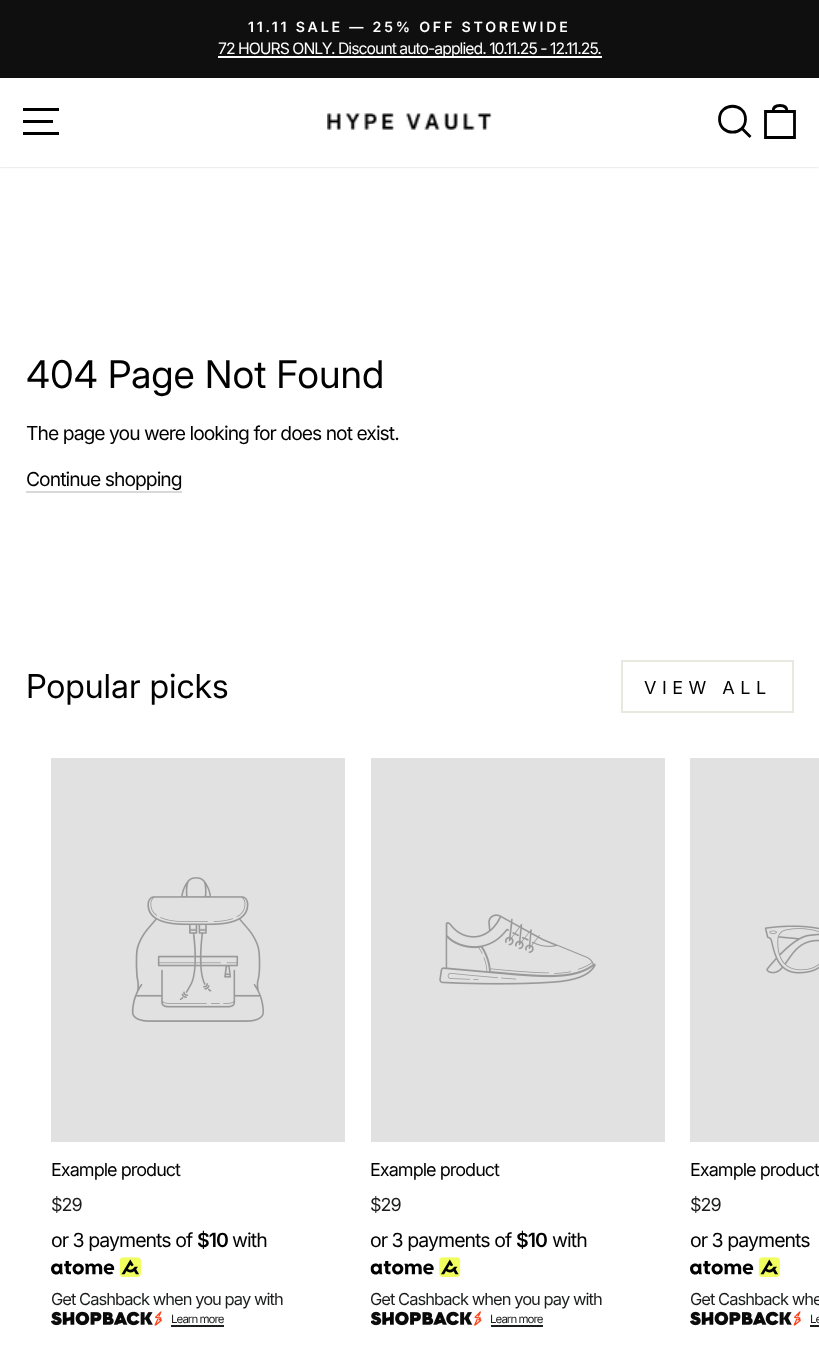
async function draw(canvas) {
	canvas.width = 819;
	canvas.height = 1354;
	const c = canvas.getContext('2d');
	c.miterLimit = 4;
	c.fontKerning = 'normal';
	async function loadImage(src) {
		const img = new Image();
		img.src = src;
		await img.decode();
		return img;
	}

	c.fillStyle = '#fff';
	c.fillRect(0, 0, 819, 1354);
	c.fillStyle = '#0f0f0f';
	c.fillRect(0, 0, 819, 78);
	c.letterSpacing = '2.8px';
	c.font = '600 14.2px Inter';
	c.fillStyle = '#fff';
	c.fillText('11.11 SALE — 25% OFF STOREWIDE', 248, 32);
	c.fillRect(218, 56, 384, 2);
	c.letterSpacing = '-0.97px';
	c.font = '15.75px "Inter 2"';
	c.fillText('72 HOURS ONLY. Discount auto-applied. 10.11.25 - 12.11.25.', 218, 54);
	c.fillStyle = '#00000033';
	c.filter = 'blur(1px)';
	c.beginPath();
	c.rect(0, 78, 819, 89);
	c.fill();
	c.filter = 'none';
	c.fillStyle = '#fff';
	c.fillRect(0, 78, 819, 89);
	c.beginPath();
	c.moveTo(23, 109.5);
	c.lineTo(59, 109.5);
	c.moveTo(23, 121.5);
	c.lineTo(53, 121.5);
	c.moveTo(23, 133.5);
	c.lineTo(59, 133.5);
	c.strokeStyle = '#000';
	c.lineWidth = 2.8;
	c.stroke();
	c.drawImage(await loadImage('img1.png'), 327, 113, 165, 17);
	c.beginPath();
	c.moveTo(745.5, 119);
	c.bezierCurveTo(745.5, 136.5, 719.5, 136.5, 719.5, 119);
	c.bezierCurveTo(719.5, 102, 745.5, 102, 745.5, 119);
	c.closePath();
	c.moveTo(750.5, 137);
	c.lineTo(742, 128.5);
	c.stroke();
	c.beginPath();
	c.moveTo(765.5, 111.5);
	c.lineTo(794.5, 111.5);
	c.lineTo(794.5, 137.5);
	c.lineTo(765.5, 137.5);
	c.closePath();
	c.moveTo(773, 111.5);
	c.bezierCurveTo(773, 106.5, 776, 105.5, 780, 105.5);
	c.bezierCurveTo(784, 105.5, 787, 106.5, 787, 111.5);
	c.stroke();
	c.letterSpacing = '0px';
	c.font = '38.25px Inter';
	c.fillStyle = '#000';
	c.fillText('404 Page Not Found', 26, 388);
	c.letterSpacing = '-0.97px';
	c.font = '19.3px "Inter 2"';
	c.fillText('The page you were looking for does not exist.', 26, 440);
	c.fillText('Continue shopping', 26, 486);
	c.fillStyle = '#d9d9d9';
	c.fillRect(26, 491, 156, 2);
	c.letterSpacing = '0px';
	c.font = '33px "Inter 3"';
	c.fillStyle = '#000';
	c.fillText('Popular picks', 26, 698);
	c.strokeStyle = '#e8e8e1';
	c.lineWidth = 2;
	c.strokeRect(622, 661, 171, 51);
	c.letterSpacing = '5.5px';
	c.font = '18px "Inter 2"';
	c.fillText('VIEW ALL', 644, 694);
	c.fillStyle = '#e1e1e1';
	c.fillRect(51, 758, 294, 384);
	c.drawImage(await loadImage('img2.png'), 131, 877, 133, 145);
	c.letterSpacing = '-0.97px';
	c.fillStyle = '#000';
	c.fillText('Example product', 51, 1176);
	c.fillStyle = '#1c1d1d';
	c.fillText('$29', 51, 1211);
	c.font = '19.5px "Inter 2"';
	c.fillStyle = '#000';
	c.fillText('or 3 payments of', 51, 1247);
	c.font = '600 19.5px Inter';
	c.fillText('$10', 197, 1247);
	c.font = '19.5px "Inter 2"';
	c.fillText('with', 232, 1247);
	c.drawImage(await loadImage('img3.png'), 51, 1257, 90, 20);
	c.font = '16.5px "Inter 2"';
	c.fillStyle = '#1c1d1d';
	c.fillText('Get Cashback when you pay with', 51, 1305);
	c.drawImage(await loadImage('img4.png'), 51, 1311, 111, 15);
	c.font = '11.5px "Inter 2"';
	c.fillText('Learn more', 171, 1323);
	c.fillRect(171, 1325, 53, 2);
	c.fillStyle = '#e1e1e1';
	c.fillRect(371, 758, 294, 384);
	c.drawImage(await loadImage('img5.png'), 439, 914, 157, 71);
	c.font = '18px "Inter 2"';
	c.fillStyle = '#000';
	c.fillText('Example product', 370, 1176);
	c.fillStyle = '#1c1d1d';
	c.fillText('$29', 370, 1211);
	c.font = '19.5px "Inter 2"';
	c.fillStyle = '#000';
	c.fillText('or 3 payments of', 370, 1247);
	c.font = '600 19.5px Inter';
	c.fillText('$10', 516, 1247);
	c.font = '19.5px "Inter 2"';
	c.fillText('with', 552, 1247);
	c.drawImage(await loadImage('img6.png'), 370, 1257, 91, 20);
	c.font = '16.5px "Inter 2"';
	c.fillStyle = '#1c1d1d';
	c.fillText('Get Cashback when you pay with', 370, 1305);
	c.drawImage(await loadImage('img7.png'), 371, 1311, 111, 15);
	c.font = '11.5px "Inter 2"';
	c.fillText('Learn more', 490, 1323);
	c.fillRect(491, 1325, 52, 2);
	c.fillStyle = '#e1e1e1';
	c.fillRect(690, 758, 129, 384);
	c.drawImage(await loadImage('img8.png'), 764, 925, 55, 49);
	c.font = '18px "Inter 2"';
	c.fillStyle = '#000';
	c.fillText('Example product', 690, 1176);
	c.fillStyle = '#1c1d1d';
	c.fillText('$29', 690, 1211);
	c.font = '19.5px "Inter 2"';
	c.fillStyle = '#000';
	c.fillText('or 3 payments', 690, 1247);
	c.drawImage(await loadImage('img9.png'), 690, 1257, 90, 20);
	c.font = '16.5px "Inter 2"';
	c.fillStyle = '#1c1d1d';
	c.fillText('Get Cashback whe', 690, 1305);
	c.drawImage(await loadImage('img4.png'), 690, 1311, 111, 15);
	c.font = '11.5px "Inter 2"';
	c.fillText('Le', 810, 1323);
	c.fillRect(810, 1325, 9, 2);
}

draw(document.querySelector('canvas'));
